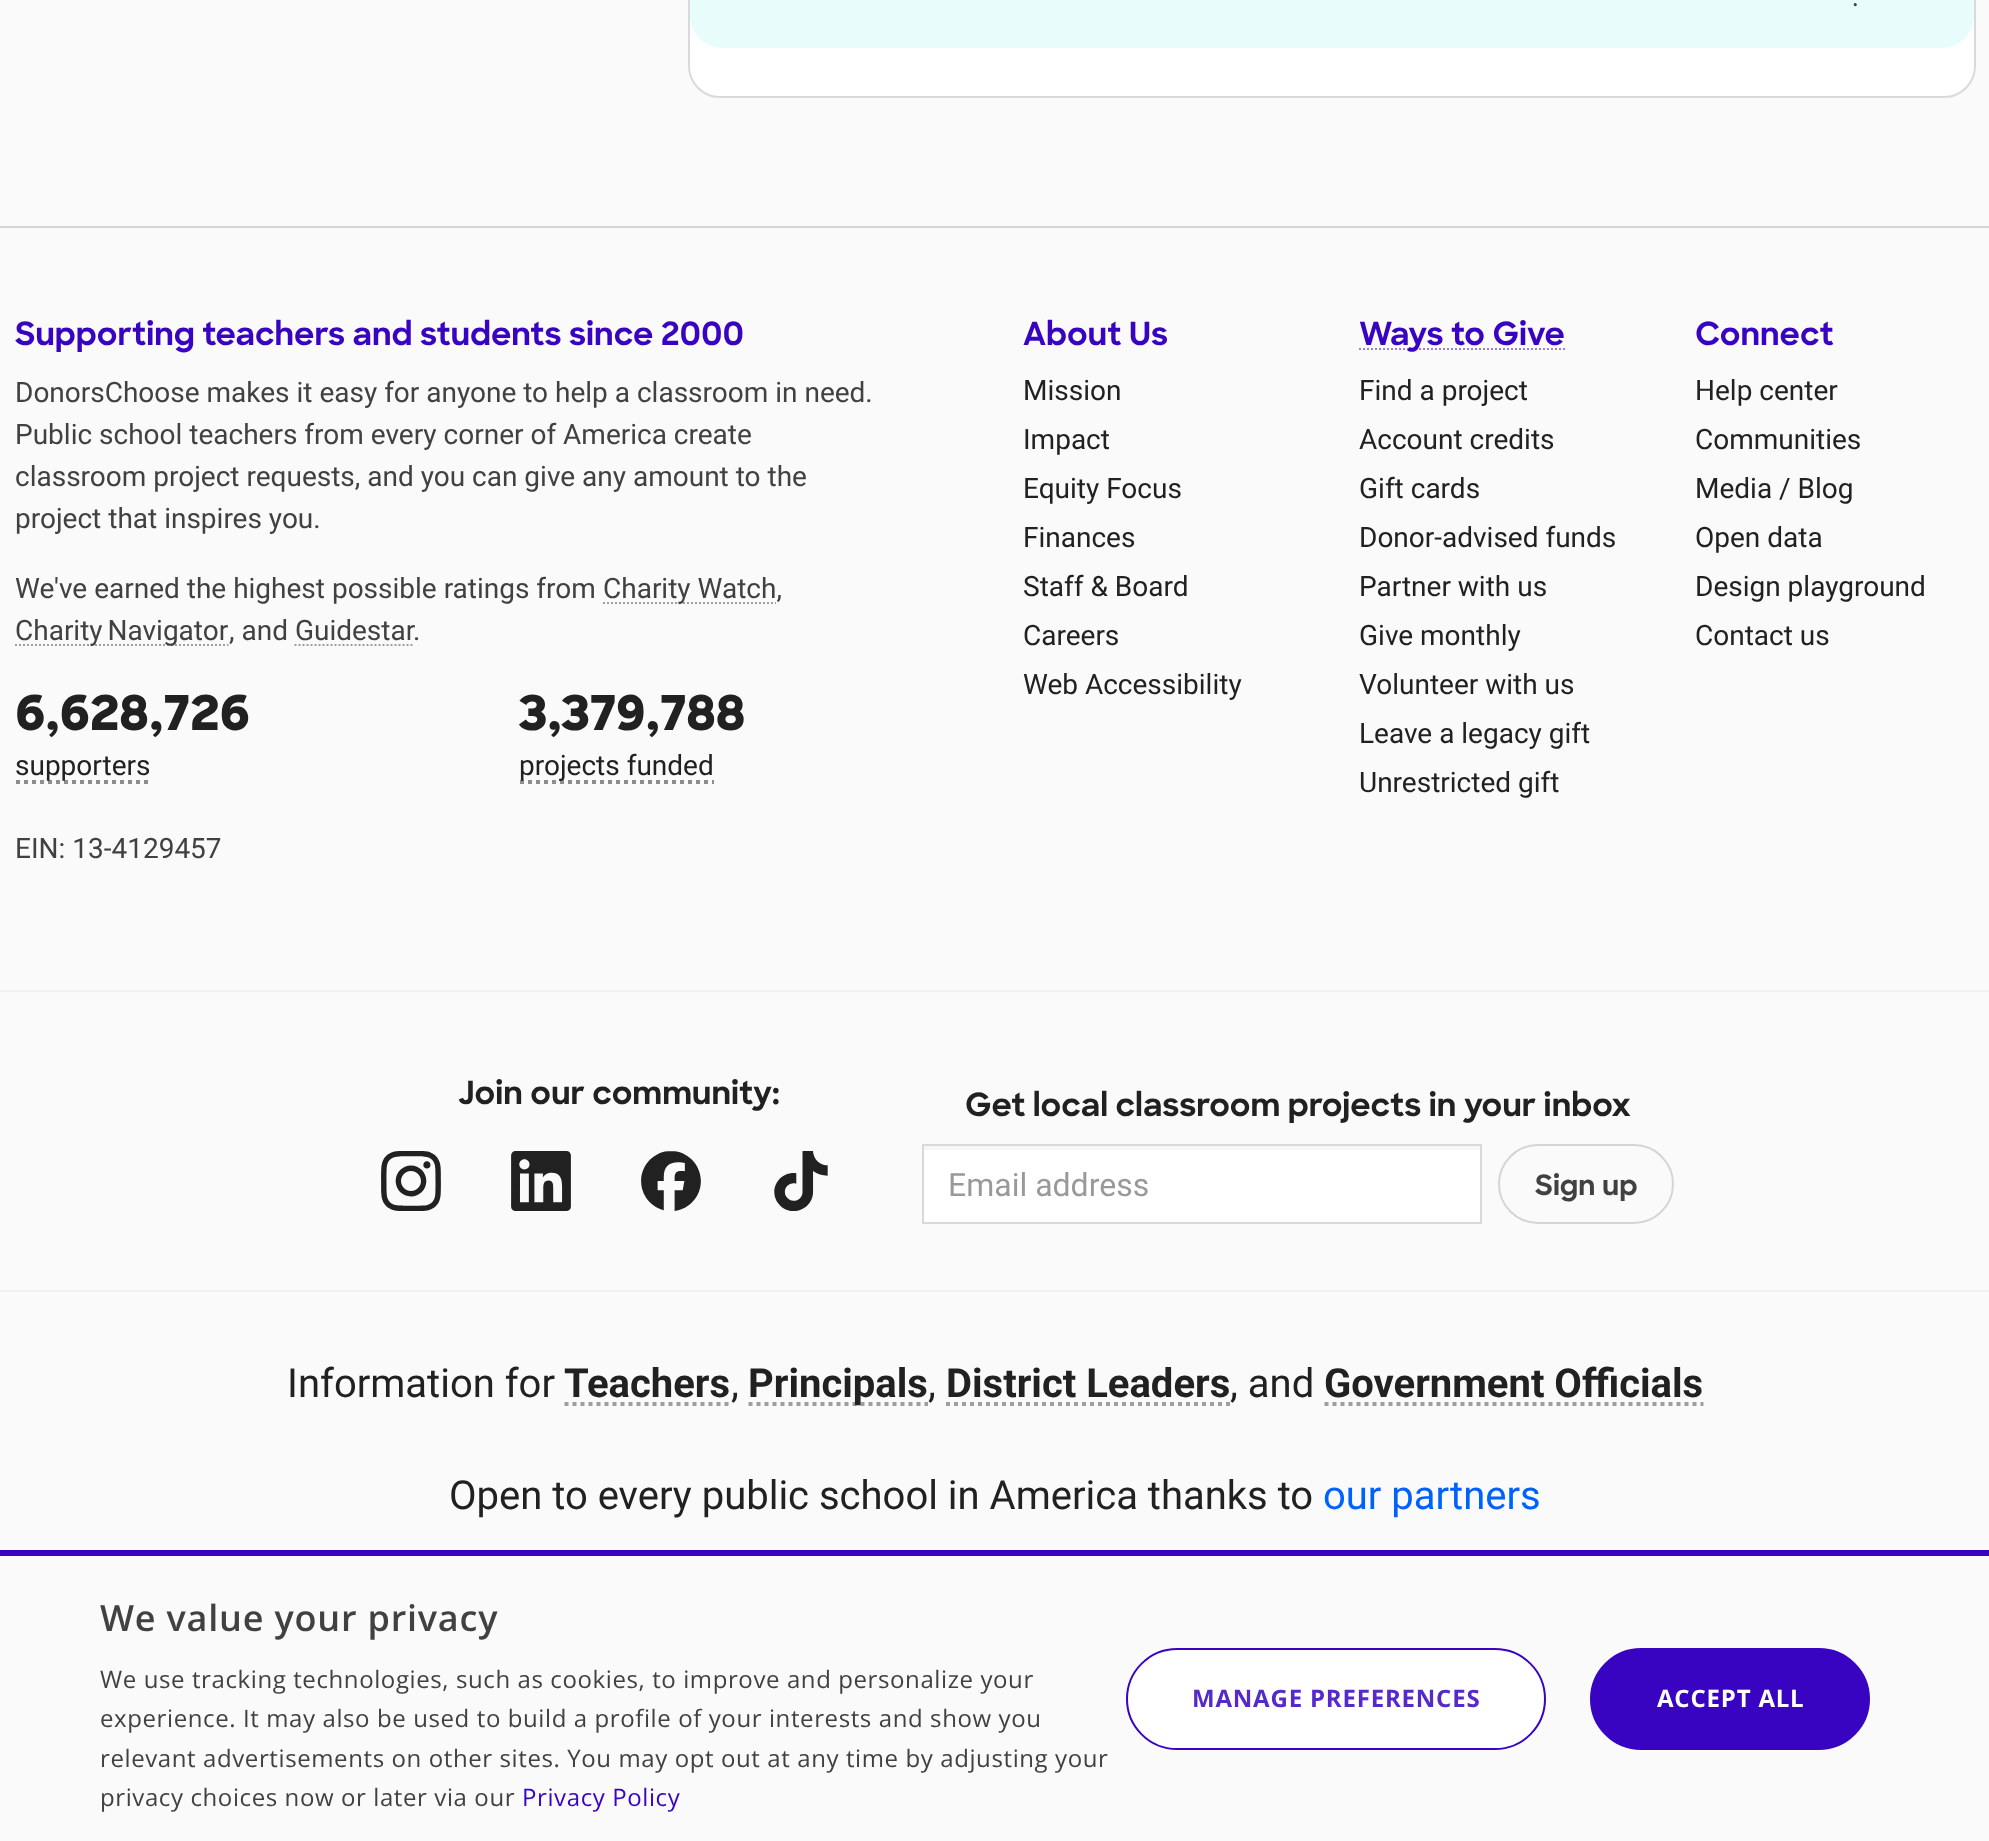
async function draw(canvas) {
	canvas.width = 1989;
	canvas.height = 1841;
	const c = canvas.getContext('2d');
	c.miterLimit = 4;
	c.fontKerning = 'normal';
	async function loadImage(src) {
		const img = new Image();
		img.src = src;
		await img.decode();
		return img;
	}

	c.fillStyle = '#fafafa';
	c.fillRect(0, 0, 1989, 1841);
	c.fillStyle = '#fff';
	c.beginPath();
	c.roundRect(689, -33, 1286, 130, 31);
	c.fill();
	c.strokeStyle = '#d9d9d9';
	c.lineWidth = 2;
	c.stroke();
	c.fillStyle = '#e9fcfc';
	c.beginPath();
	c.moveTo(690, -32);
	c.lineTo(1974, -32);
	c.lineTo(1974, 16);
	c.bezierCurveTo(1974, 33.5, 1959.5, 48, 1942, 48);
	c.lineTo(722, 48);
	c.bezierCurveTo(704.5, 48, 690, 33.5, 690, 16);
	c.closePath();
	c.fill();
	c.font = 'italic 28px Roboto';
	c.fillStyle = '#414142';
	c.fillText('.', 1853, 6);
	c.fillStyle = '#d5d5d5';
	c.fillRect(0, 226, 1989, 2);
	c.font = 'bold 32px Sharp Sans';
	c.fillStyle = '#3804c1';
	c.fillText('Supporting teachers and students since 2000', 15, 345);
	c.font = '28px Roboto';
	c.fillStyle = '#414142';
	for (const [text, x, y] of [
		['DonorsChoose makes it easy for anyone to help a classroom in need.', 15, 402],
		['Public school teachers from every corner of America create', 15, 444],
		['classroom project requests, and you can give any amount to the', 15, 486],
		['project that inspires you.', 15, 528],
		['We\'ve earned the highest possible ratings from', 15, 598],
	]) {
		c.fillText(text, x, y);
	}
	c.beginPath();
	c.moveTo(603, 603);
	c.lineTo(776, 603);
	c.strokeStyle = '#9e9e9e';
	c.setLineDash([2, 2]);
	c.stroke();
	c.fillText('Charity Watch,', 603, 598);
	c.beginPath();
	c.moveTo(15, 645);
	c.lineTo(228.5, 645);
	c.stroke();
	c.wordSpacing = '-2px';
	c.fillText('Charity Navigator', 15, 640);
	c.wordSpacing = '0px';
	c.fillText(', and Guidestar', 229, 640);
	c.fillText('.', 413, 640);
	c.beginPath();
	c.moveTo(294.5, 645);
	c.lineTo(413, 645);
	c.stroke();
	c.beginPath();
	c.moveTo(16, 782);
	c.lineTo(150, 782);
	c.strokeStyle = '#8e8e8e';
	c.lineWidth = 4;
	c.setLineDash([4, 4]);
	c.stroke();
	c.font = '800 48px Sharp Sans';
	c.fillStyle = '#212121';
	c.fillText('6,628,726', 15, 730);
	c.font = '28px Roboto';
	c.fillText('supporters', 15, 775);
	c.beginPath();
	c.moveTo(520, 782);
	c.lineTo(714, 782);
	c.stroke();
	c.font = '800 48px Sharp Sans';
	c.fillText('3,379,788', 519, 730);
	c.font = '28px Roboto';
	c.fillText('projects funded', 519, 775);
	c.fillStyle = '#414142';
	c.fillText('EIN: 13-4129457', 15, 858);
	c.font = 'bold 32px Sharp Sans';
	c.fillStyle = '#3804c1';
	c.fillText('About Us', 1023, 345);
	c.font = '28px Roboto';
	c.fillStyle = '#212121';
	for (const [text, x, y] of [
		['Mission', 1023, 400],
		['Impact', 1023, 449],
		['Equity Focus', 1023, 498],
		['Finances', 1023, 547],
		['Staff & Board', 1023, 596],
		['Careers', 1023, 645],
		['Web Accessibility', 1023, 694],
	]) {
		c.fillText(text, x, y);
	}
	c.beginPath();
	c.moveTo(1359, 349);
	c.lineTo(1565, 349);
	c.strokeStyle = '#997fde';
	c.lineWidth = 2;
	c.setLineDash([2, 2]);
	c.stroke();
	c.font = 'bold 32px Sharp Sans';
	c.fillStyle = '#3804c1';
	c.fillText('Ways to Give', 1359, 345);
	c.font = '28px Roboto';
	c.fillStyle = '#212121';
	for (const [text, x, y] of [
		['Find a project', 1359, 400],
		['Account credits', 1359, 449],
		['Gift cards', 1359, 498],
		['Donor-advised funds', 1359, 547],
		['Partner with us', 1359, 596],
		['Give monthly', 1359, 645],
		['Volunteer with us', 1359, 694],
		['Leave a legacy gift', 1359, 743],
		['Unrestricted gift', 1359, 792],
	]) {
		c.fillText(text, x, y);
	}
	c.font = 'bold 32px Sharp Sans';
	c.fillStyle = '#3804c1';
	c.fillText('Connect', 1695, 345);
	c.font = '28px Roboto';
	c.fillStyle = '#212121';
	for (const [text, x, y] of [
		['Help center', 1695, 400],
		['Communities', 1695, 449],
		['Media / Blog', 1695, 498],
		['Open data', 1695, 547],
		['Design playground', 1695, 596],
		['Contact us', 1695, 645],
	]) {
		c.fillText(text, x, y);
	}
	c.fillStyle = '#f1f1f1';
	c.fillRect(0, 990, 1989, 2);
	c.fillRect(0, 1290, 1989, 2);
	c.font = 'bold 32px Sharp Sans';
	c.fillStyle = '#212121';
	c.fillText('Join our community:', 458, 1104);
	c.drawImage(await loadImage('img1.png'), 381, 1151, 60, 60);
	c.drawImage(await loadImage('img2.png'), 511, 1151, 60, 60);
	c.drawImage(await loadImage('img3.png'), 641, 1151, 60, 60);
	c.drawImage(await loadImage('img4.png'), 774, 1151, 54, 60);
	c.fillText('Get local classroom projects in your inbox', 965, 1116);
	c.fillStyle = '#fff';
	c.fillRect(924, 1150, 556, 72);
	c.fillStyle = '#f6f6f6';
	c.fillRect(924, 1146, 556, 4);
	c.strokeStyle = '#d9d9d9';
	c.setLineDash([]);
	c.strokeRect(923, 1145, 558, 78);
	c.font = '32px Roboto';
	c.fillStyle = '#999';
	c.fillText('Email address', 948, 1196);
	c.beginPath();
	c.roundRect(1499, 1145, 174, 78, 39);
	c.strokeStyle = '#d5d5d5';
	c.stroke();
	c.font = 'bold 28px Sharp Sans';
	c.fillStyle = '#414142';
	c.fillText('Sign up', 1535, 1195);
	c.font = '40px Roboto';
	c.fillStyle = '#212121';
	c.fillText('Information for', 287, 1397);
	c.font = 'bold 40px Roboto';
	c.fillText('Teachers', 564, 1397);
	c.beginPath();
	c.moveTo(564.5, 1404);
	c.lineTo(730.5, 1404);
	c.strokeStyle = '#9e9e9e';
	c.lineWidth = 4;
	c.setLineDash([4, 4]);
	c.stroke();
	c.font = '40px Roboto';
	c.fillText(',', 731, 1397);
	c.beginPath();
	c.moveTo(748.5, 1404);
	c.lineTo(928, 1404);
	c.stroke();
	c.font = 'bold 40px Roboto';
	c.fillText('Principals', 748, 1397);
	c.font = '40px Roboto';
	c.fillText(',', 928, 1397);
	c.font = 'bold 40px Roboto';
	c.fillText('District Leaders', 946, 1397);
	c.beginPath();
	c.moveTo(946, 1404);
	c.lineTo(1230, 1404);
	c.stroke();
	c.font = '40px Roboto';
	c.fillText(', and', 1230, 1397);
	c.font = 'bold 40px Roboto';
	c.fillText('Government Officials', 1324, 1397);
	c.beginPath();
	c.moveTo(1324.5, 1404);
	c.lineTo(1703.5, 1404);
	c.stroke();
	c.font = '40px Roboto';
	c.fillText('Open to every public school in America thanks to', 449, 1509);
	c.fillStyle = '#0062fd';
	c.fillText('our partners', 1323, 1509);
	c.fillStyle = '#3804c1';
	c.fillRect(0, 1550, 1989, 6);
	c.letterSpacing = '0.8px';
	c.font = '600 36px Open Sans';
	c.fillStyle = '#414142';
	c.fillText('We value your privacy', 100, 1631);
	c.letterSpacing = '0.6px';
	c.font = '24px Open Sans';
	for (const [text, x, y] of [
		['We use tracking technologies, such as cookies, to improve and personalize your', 100, 1688],
		['experience. It may also be used to build a profile of your interests and show you', 100, 1727],
		['relevant advertisements on other sites. You may opt out at any time by adjusting your', 100, 1767],
		['privacy choices now or later via our', 100, 1806],
	]) {
		c.fillText(text, x, y);
	}
	c.fillStyle = '#3804c1';
	c.fillText('Privacy Policy', 522, 1806);
	c.fillStyle = '#fff';
	c.beginPath();
	c.roundRect(1127, 1649, 418, 100, 50);
	c.fill();
	c.strokeStyle = '#3804c1';
	c.lineWidth = 2;
	c.setLineDash([]);
	c.stroke();
	c.letterSpacing = '0.8px';
	c.font = 'bold 24px Open Sans';
	c.fillStyle = '#562aca';
	c.fillText('MANAGE PREFERENCES', 1192, 1707);
	c.fillStyle = '#3804c1';
	c.beginPath();
	c.roundRect(1591, 1649, 278, 100, 50);
	c.fill();
	c.stroke();
	c.fillStyle = '#fff';
	c.fillText('ACCEPT ALL', 1657, 1707);
}

draw(document.querySelector('canvas'));
